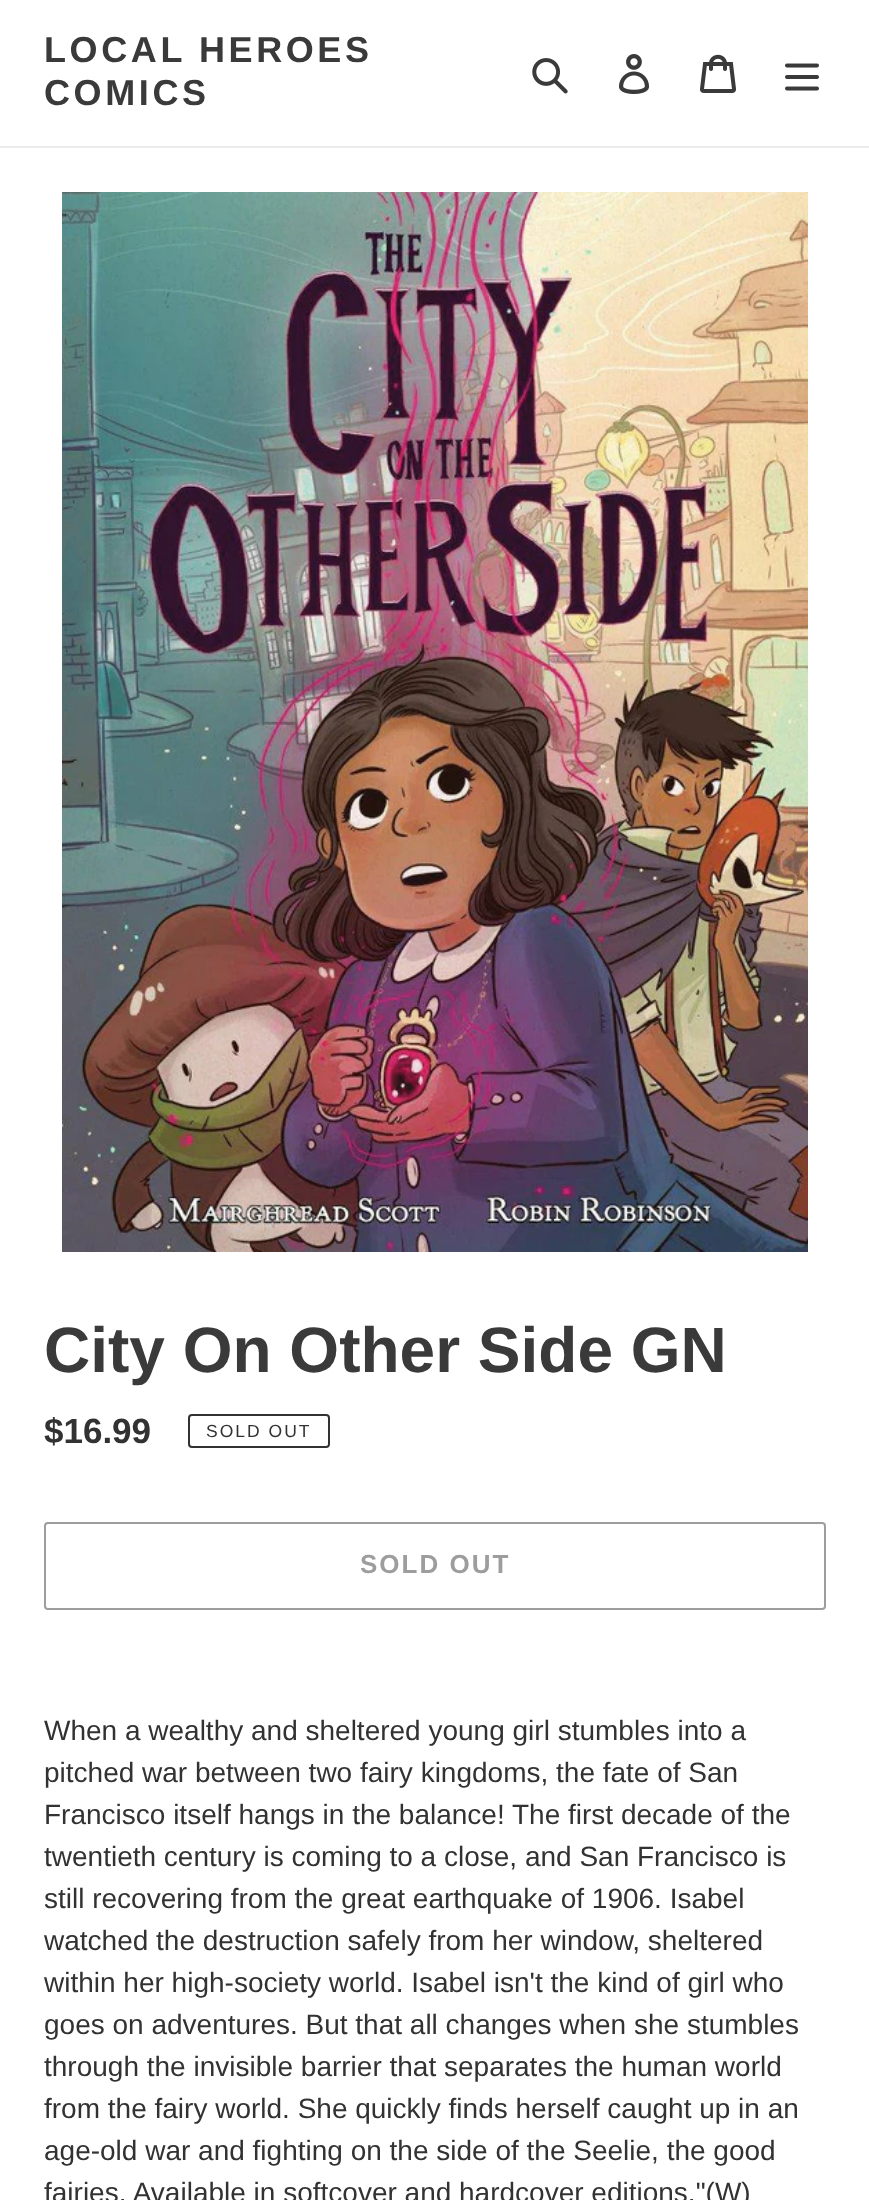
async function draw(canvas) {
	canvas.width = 869;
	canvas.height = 2200;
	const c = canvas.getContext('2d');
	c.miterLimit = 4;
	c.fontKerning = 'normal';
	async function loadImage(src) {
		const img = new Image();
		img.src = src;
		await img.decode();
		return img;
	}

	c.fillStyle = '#fff';
	c.fillRect(0, 0, 869, 2200);
	c.fillStyle = '#ebebeb';
	c.fillRect(0, 146, 869, 2);
	c.letterSpacing = '3.6px';
	c.font = 'bold 36px Liberation Sans';
	c.fillStyle = '#3a3a3a';
	c.fillText('LOCAL HEROES', 44, 62);
	c.fillText('COMICS', 44, 105);
	c.drawImage(await loadImage('img1.png'), 532, 58, 36, 36);
	c.drawImage(await loadImage('img2.png'), 619, 54, 31, 40);
	c.drawImage(await loadImage('img3.png'), 700, 54, 36, 39);
	c.drawImage(await loadImage('img4.png'), 785, 63, 34, 28);
	c.drawImage(await loadImage('img5.png'), 62, 192, 746, 1060);
	c.letterSpacing = '0px';
	c.font = 'bold 64px Liberation Sans';
	c.fillText('City On Other Side GN', 44, 1372);
	c.font = 'bold 35px Liberation Sans';
	c.fillStyle = '#333232';
	c.fillText('$16.99', 44, 1443);
	c.beginPath();
	c.roundRect(189, 1415, 140, 32, 3);
	c.strokeStyle = '#333232';
	c.lineWidth = 2;
	c.stroke();
	c.letterSpacing = '2px';
	c.font = '17.5px Liberation Sans';
	c.fillText('SOLD OUT', 206, 1437);
	c.beginPath();
	c.roundRect(45, 1523, 780, 86, 3);
	c.strokeStyle = '#9d9d9d';
	c.stroke();
	c.font = 'bold 26px Liberation Sans';
	c.fillStyle = '#9d9d9d';
	c.fillText('SOLD OUT', 360, 1573);
	c.letterSpacing = '0px';
	c.font = '28px Liberation Sans';
	c.fillStyle = '#333232';
	for (const [text, x, y] of [
		['When a wealthy and sheltered young girl stumbles into a', 44, 1740],
		['pitched war between two fairy kingdoms, the fate of San', 44, 1782],
		['Francisco itself hangs in the balance! The first decade of the', 44, 1824],
		['twentieth century is coming to a close, and San Francisco is', 44, 1866],
		['still recovering from the great earthquake of 1906. Isabel', 44, 1908],
		['watched the destruction safely from her window, sheltered', 44, 1950],
		['within her high-society world. Isabel isn\'t the kind of girl who', 44, 1992],
		['goes on adventures. But that all changes when she stumbles', 44, 2034],
		['through the invisible barrier that separates the human world', 44, 2076],
		['from the fairy world. She quickly finds herself caught up in an', 44, 2118],
		['age-old war and fighting on the side of the Seelie, the good', 44, 2160],
		['fairies. Available in softcover and hardcover editions."(W)', 44, 2202],
	]) {
		c.fillText(text, x, y);
	}
}

draw(document.querySelector('canvas'));
